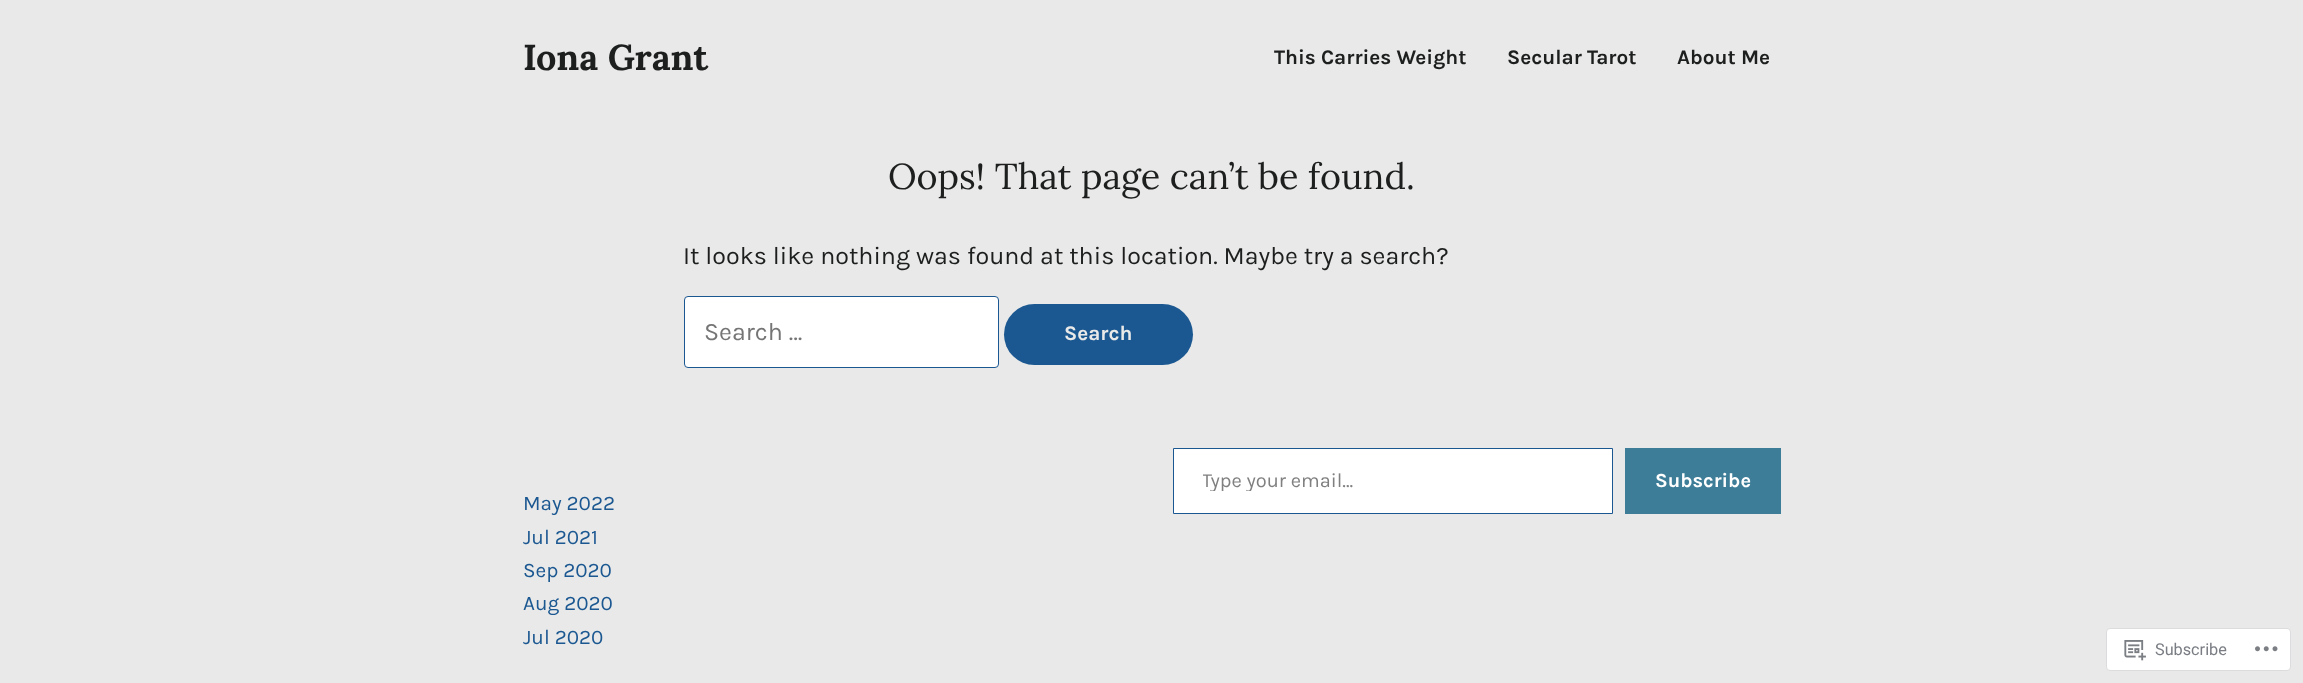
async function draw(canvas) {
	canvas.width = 2303;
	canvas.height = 683;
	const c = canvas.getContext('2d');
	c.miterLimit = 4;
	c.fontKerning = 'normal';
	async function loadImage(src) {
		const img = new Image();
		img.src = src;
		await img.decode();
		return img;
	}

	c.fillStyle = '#e8e9e8';
	c.fillRect(0, 0, 2303, 683);
	c.font = 'bold 36px Lora';
	c.fillStyle = '#1d1e1e';
	c.fillText('Iona Grant', 523, 70);
	c.font = 'bold 20.75px Karla';
	for (const [text, x, y] of [
		['This Carries Weight', 1274, 64],
		['Secular Tarot', 1507, 64],
		['About Me', 1677, 64],
	]) {
		c.fillText(text, x, y);
	}
	c.font = '36px Lora';
	c.fillText('Oops! That page can’t be found.', 888, 189);
	c.font = '25px Karla';
	c.fillText('It looks like nothing was found at this location. Maybe try a search?', 683, 264);
	c.fillStyle = '#fff';
	c.beginPath();
	c.roundRect(684.5, 296.5, 314, 71, 3.5);
	c.fill();
	c.strokeStyle = '#1b5791';
	c.stroke();
	c.fillStyle = '#757575';
	c.fillText('Search …', 704, 340);
	c.fillStyle = '#1b5791';
	c.beginPath();
	c.roundRect(1004, 304, 189, 61, 30.5);
	c.fill();
	c.font = 'bold 20.75px Karla';
	c.fillStyle = '#e8e9e8';
	c.fillText('Search', 1064, 340);
	c.fillStyle = '#fff';
	c.beginPath();
	c.rect(1173.5, 448.5, 439, 65);
	c.fill();
	c.stroke();
	c.save();
	c.beginPath();
	c.rect(1203, 468, 380, 23);
	c.clip();
	c.font = '20px Karla';
	c.fillStyle = '#808080';
	c.fillText('Type your email…', 1202, 487);
	c.restore();
	c.fillStyle = '#3e7d98';
	c.fillRect(1625, 448, 156, 66);
	c.font = 'bold 20px Karla';
	c.fillStyle = '#fff';
	c.fillText('Subscribe', 1655, 487);
	c.font = '20.75px Karla';
	c.fillStyle = '#1b5791';
	for (const [text, x, y] of [
		['May 2022', 523, 510],
		['Jul 2021', 523, 544],
		['Sep 2020', 523, 577],
		['Aug 2020', 523, 610],
		['Jul 2020', 523, 644],
	]) {
		c.fillText(text, x, y);
	}
	c.fillStyle = '#fff';
	c.beginPath();
	c.roundRect(2106.5, 628.5, 184, 42, 3.5);
	c.fill();
	c.strokeStyle = '#dcdcde';
	c.stroke();
	c.drawImage(await loadImage('img1.png'), 2124, 640, 22, 21);
	c.font = '16.25px Roboto';
	c.fillStyle = '#7a7e84';
	c.fillText('Subscribe', 2155, 655);
	c.drawImage(await loadImage('img2.png'), 2255, 646, 23, 6);
}

draw(document.querySelector('canvas'));
